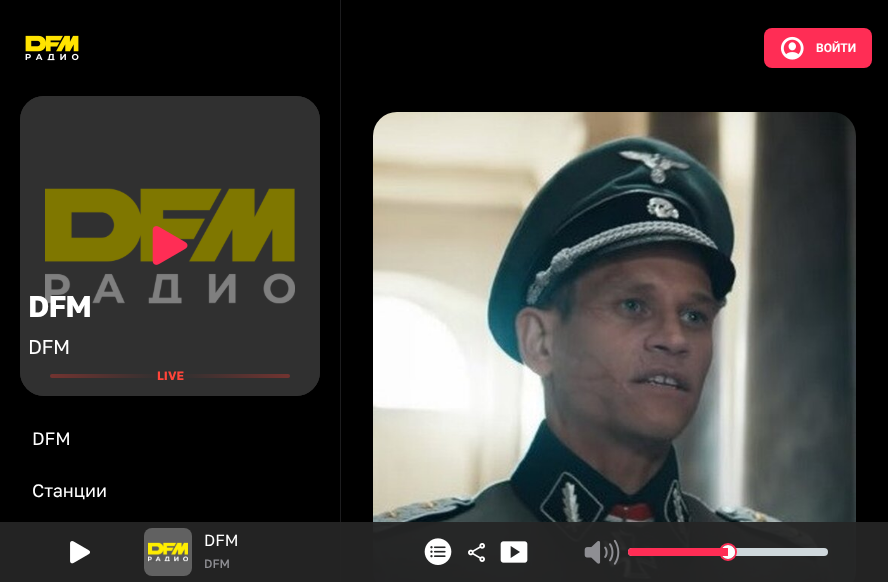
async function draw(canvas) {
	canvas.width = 888;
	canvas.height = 582;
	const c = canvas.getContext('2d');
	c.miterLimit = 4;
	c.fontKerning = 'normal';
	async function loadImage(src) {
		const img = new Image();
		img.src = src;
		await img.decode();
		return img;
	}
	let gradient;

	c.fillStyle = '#000';
	c.fillRect(0, 0, 888, 582);
	c.fillStyle = '#ff2d55';
	c.beginPath();
	c.roundRect(764, 28, 108, 40, 8);
	c.fill();
	c.drawImage(await loadImage('img1.png'), 780, 36, 24, 24);
	c.font = 'bold 12px Roboto';
	c.fillStyle = '#fff';
	c.fillText('ВОЙТИ', 816, 52);
	c.drawImage(await loadImage('img2.png'), 373, 112, 483, 470);
	c.fillStyle = '#1c1c1e';
	c.fillRect(340, 0, 1, 582);
	c.drawImage(await loadImage('img3.png'), 25, 35, 54, 26);
	c.fillStyle = '#616161';
	c.beginPath();
	c.roundRect(20, 96, 300, 300, 24);
	c.fill();
	c.drawImage(await loadImage('img5.png'), 45, 188, 250, 116);
	c.fillStyle = '#00000080';
	c.beginPath();
	c.roundRect(20, 96, 300, 300, 24);
	c.fill();
	c.drawImage(await loadImage('img4.png'), 152, 226, 36, 39);
	c.letterSpacing = '-1px';
	c.font = 'bold 30px Golos Text';
	c.fillStyle = '#fff';
	c.fillText('DFM', 28, 317);
	c.letterSpacing = '-0.5px';
	c.font = '20px Golos Text';
	c.fillText('DFM', 28, 354);
	c.letterSpacing = '0px';
	c.font = 'bold 12px Golos Text';
	c.fillStyle = '#ff453a';
	c.fillText('LIVE', 157, 380);
	gradient = c.createLinearGradient(50, 376, 290, 376);
	gradient.addColorStop(0, '#ff3b3052');
	gradient.addColorStop(0.47, '#ff3b3000');
	gradient.addColorStop(0.53, '#ff3b3000');
	gradient.addColorStop(1, '#ff3b3052');
	c.fillStyle = gradient;
	c.beginPath();
	c.roundRect(50, 374, 240, 4, 2);
	c.fill();
	c.font = '18px Golos Text';
	c.fillStyle = '#fff';
	c.fillText('DFM', 32, 445);
	c.fillText('Станции', 32, 497);
	c.fillStyle = '#252525f0';
	c.fillRect(0, 522, 888, 60);
	c.drawImage(await loadImage('img6.png'), 70, 541, 20, 23);
	c.fillStyle = '#616161';
	c.beginPath();
	c.roundRect(144, 528, 48, 48, 8);
	c.fill();
	c.drawImage(await loadImage('img7.png'), 147, 542, 42, 20);
	c.font = '16px Golos Text';
	c.fillStyle = '#fff';
	c.fillText('DFM', 204, 546);
	c.font = '500 12px Golos Text';
	c.fillStyle = '#8e8e93';
	c.fillText('DFM', 204, 568);
	c.drawImage(await loadImage('img8.png'), 424, 538, 28, 27);
	c.drawImage(await loadImage('img9.png'), 468, 543, 17, 19);
	c.drawImage(await loadImage('img10.png'), 500, 541, 28, 22);
	c.drawImage(await loadImage('img11.png'), 584, 539, 36, 26);
	c.fillStyle = '#cfd8dc';
	c.beginPath();
	c.roundRect(628, 548, 200, 8, 4);
	c.fill();
	c.beginPath();
	c.arc(728, 552, 8, 0, 2 * Math.PI);
	c.strokeStyle = '#ff2d55';
	c.lineWidth = 2;
	c.stroke();
	c.fillStyle = '#fff';
	c.beginPath();
	c.arc(728, 552, 7, 0, 2 * Math.PI);
	c.fill();
	c.fillStyle = '#ff2d55';
	c.beginPath();
	c.roundRect(628, 548, 100, 8, [4, 0, 0, 4]);
	c.fill();
}

draw(document.querySelector('canvas'));
